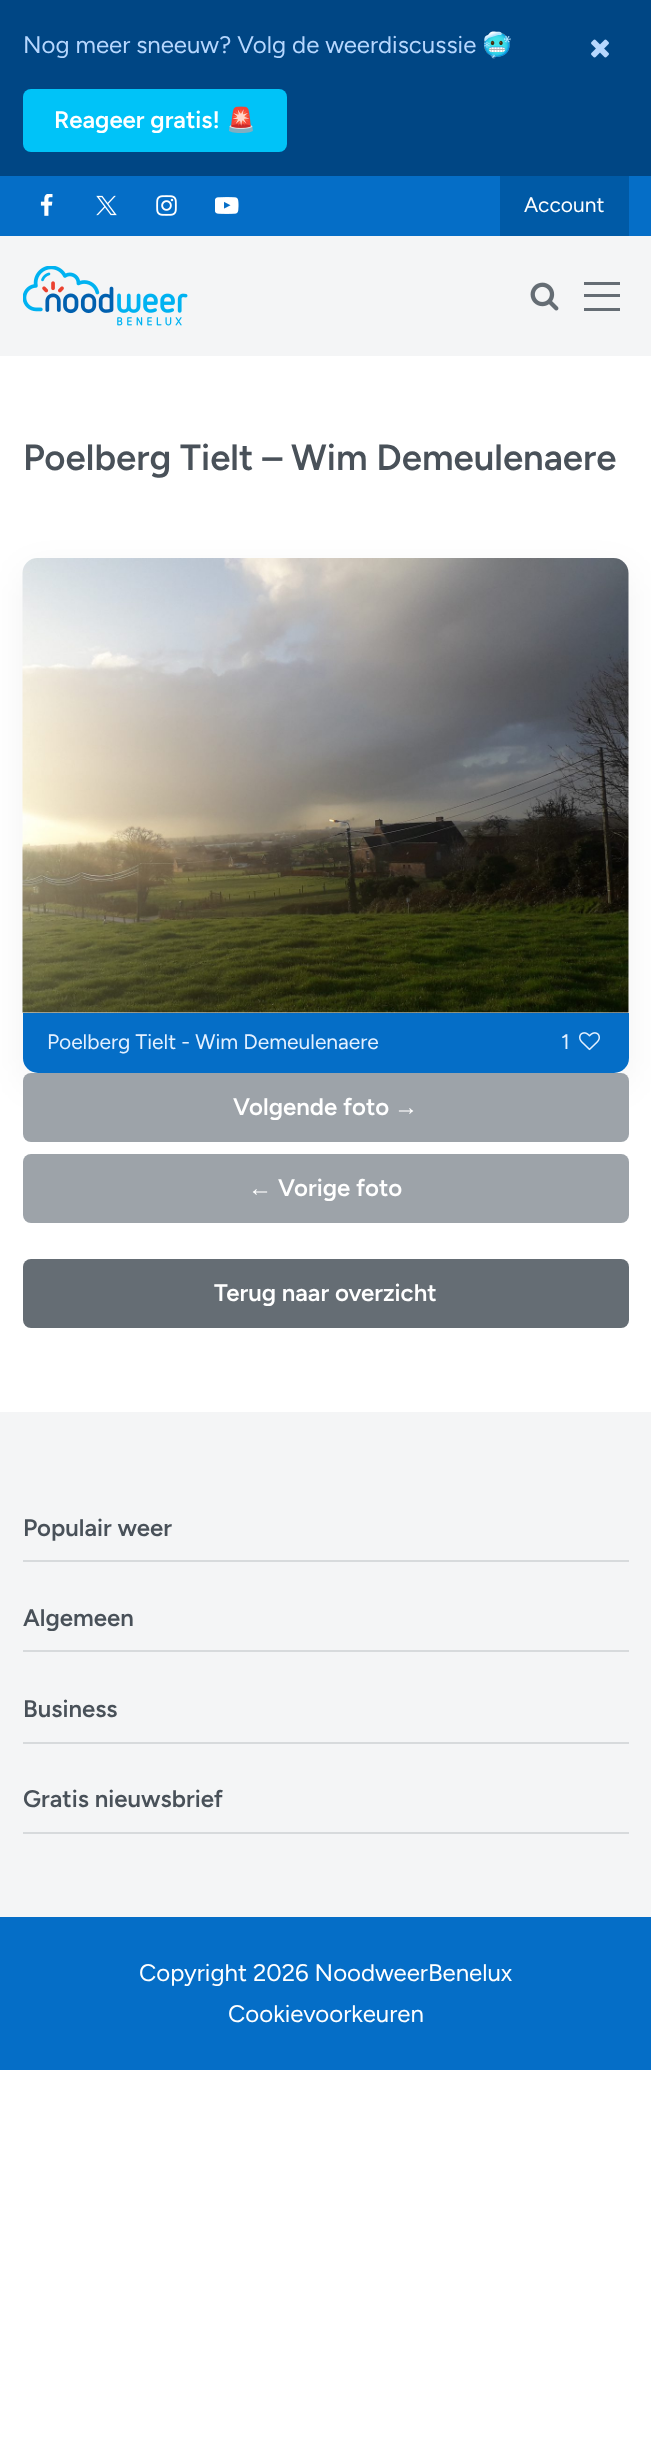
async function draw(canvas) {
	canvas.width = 651;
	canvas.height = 2448;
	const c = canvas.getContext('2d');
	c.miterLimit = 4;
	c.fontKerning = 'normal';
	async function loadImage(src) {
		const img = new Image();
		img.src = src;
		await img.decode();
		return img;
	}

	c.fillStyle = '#fff';
	c.fillRect(0, 0, 651, 2448);
	c.fillStyle = '#004684';
	c.fillRect(0, 0, 651, 176);
	c.font = '300 24px Figtree';
	c.fillStyle = '#b6d7fe';
	c.fillText('Nog meer sneeuw? Volg de weerdiscussie', 23, 53);
	c.font = '24px Noto Color Emoji';
	c.fillText('🥶', 482, 53);
	c.fillStyle = '#00c3f8';
	c.beginPath();
	c.roundRect(23, 89, 264, 63, 8);
	c.fill();
	c.font = '600 24px Figtree';
	c.fillStyle = '#fff';
	c.fillText('Reageer gratis!', 54, 128);
	c.font = 'bold 24px Noto Color Emoji';
	c.fillText('🚨', 226, 128);
	c.drawImage(await loadImage('img1.png'), 591, 39, 18, 19);
	c.fillStyle = '#056ec7';
	c.fillRect(0, 176, 651, 60);
	c.drawImage(await loadImage('img2.png'), 40, 194, 13, 22);
	c.drawImage(await loadImage('img3.png'), 96, 195, 21, 21);
	c.drawImage(await loadImage('img4.png'), 156, 195, 21, 21);
	c.drawImage(await loadImage('img5.png'), 215, 197, 24, 17);
	c.fillStyle = '#005aa6';
	c.fillRect(500, 176, 129, 60);
	c.font = '300 21px Figtree';
	c.fillStyle = '#fff';
	c.fillText('Account', 524, 212);
	c.fillStyle = '#f4f5f6';
	c.fillRect(0, 236, 651, 120);
	c.drawImage(await loadImage('img6.png'), 23, 266, 165, 60);
	c.drawImage(await loadImage('img7.png'), 530, 282, 29, 29);
	for (const [x, y, w, h, color] of [
		[584, 282, 36, 3, '#656d74'],
		[584, 294, 36, 3, '#656d74'],
		[584, 308, 36, 3, '#656d74'],
	]) {
		c.fillStyle = color;
		c.fillRect(x, y, w, h);
	}
	c.font = '600 36.6px Figtree';
	c.fillStyle = '#495159';
	c.fillText('Poelberg Tielt – Wim Demeulenaere', 23, 470);
	c.fillStyle = '#0000000d';
	c.filter = 'blur(18px)';
	c.beginPath();
	c.roundRect(23, 570, 606, 515, 15);
	c.fill();
	c.filter = 'none';
	c.drawImage(await loadImage('img8.png'), 22, 558, 607, 455);
	c.fillStyle = '#056ec7';
	c.beginPath();
	c.roundRect(23, 1013, 606, 60, [0, 0, 15, 15]);
	c.fill();
	c.font = '300 21px Figtree';
	c.fillStyle = '#e3f0ff';
	c.fillText('Poelberg Tielt - Wim Demeulenaere', 47, 1049);
	c.fillText('1', 561, 1049);
	c.drawImage(await loadImage('img9.png'), 579, 1032, 21, 19);
	c.fillStyle = '#9da3a9';
	c.beginPath();
	c.roundRect(23, 1073, 606, 69, 8);
	c.fill();
	c.font = '600 24px Figtree';
	c.fillStyle = '#fff';
	c.fillText('Volgende foto', 233, 1115);
	c.font = 'bold 24px Liberation Sans';
	c.fillText('→', 394, 1115);
	c.fillStyle = '#9da3a9';
	c.beginPath();
	c.roundRect(23, 1154, 606, 69, 8);
	c.fill();
	c.fillStyle = '#fff';
	c.fillText('←', 248, 1196);
	c.font = '600 24px Figtree';
	c.fillText('Vorige foto', 278, 1196);
	c.fillStyle = '#656d74';
	c.beginPath();
	c.roundRect(23, 1259, 606, 69, 8);
	c.fill();
	c.fillStyle = '#fff';
	c.fillText('Terug naar overzicht', 214, 1301);
	c.fillStyle = '#f4f5f6';
	c.fillRect(0, 1412, 651, 505);
	c.fillStyle = '#d7dadc';
	c.fillRect(23, 1560, 606, 2);
	c.fillStyle = '#495159';
	c.fillText('Populair weer', 23, 1536);
	c.fillStyle = '#d7dadc';
	c.fillRect(23, 1650, 606, 2);
	c.fillStyle = '#495159';
	c.fillText('Algemeen', 23, 1626);
	c.fillStyle = '#d7dadc';
	c.fillRect(23, 1742, 606, 2);
	c.fillStyle = '#495159';
	c.fillText('Business', 23, 1717);
	c.fillStyle = '#d7dadc';
	c.fillRect(23, 1832, 606, 2);
	c.fillStyle = '#495159';
	c.fillText('Gratis nieuwsbrief', 23, 1807);
	c.fillStyle = '#056ec7';
	c.fillRect(0, 1917, 651, 153);
	c.font = '300 24px Figtree';
	c.fillStyle = '#fff';
	c.fillText('Copyright 2026 NoodweerBenelux', 139, 1981);
	c.fillText('Cookievoorkeuren', 228, 2022);
}

draw(document.querySelector('canvas'));
